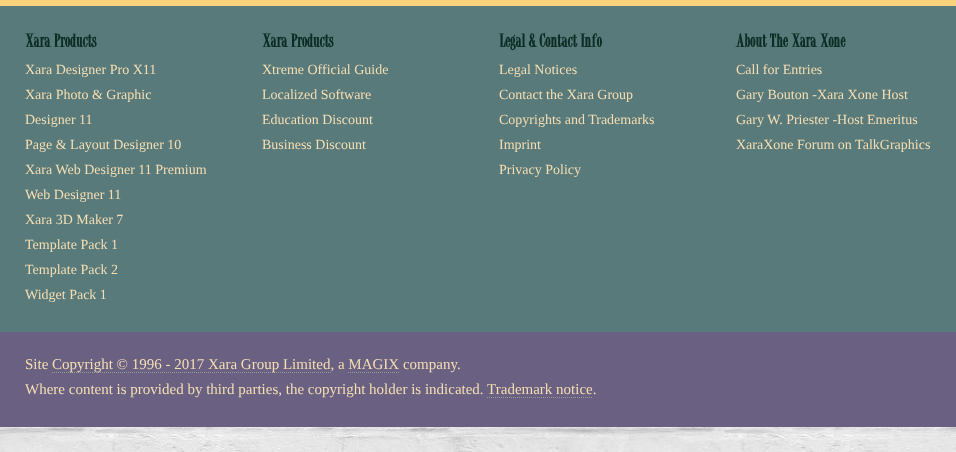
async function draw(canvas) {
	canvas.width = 956;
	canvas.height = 452;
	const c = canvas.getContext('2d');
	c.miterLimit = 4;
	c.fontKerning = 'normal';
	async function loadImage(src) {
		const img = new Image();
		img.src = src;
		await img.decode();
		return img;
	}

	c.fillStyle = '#fff';
	c.fillRect(0, 0, 956, 452);
	c.drawImage(await loadImage('img1.png'), 0, 427, 956, 25);
	c.fillStyle = '#fbd37d';
	c.fillRect(0, 0, 956, 6);
	c.fillStyle = '#597a7a';
	c.fillRect(0, 6, 956, 326);
	c.font = 'bold 19.5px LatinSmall';
	c.fillStyle = '#0c2d24';
	c.fillText('Xara Products', 25, 47);
	c.font = '14px Liberation Serif';
	c.fillStyle = '#f5deb3';
	for (const [text, x, y] of [
		['Xara Designer Pro X11', 25, 74],
		['Xara Photo & Graphic', 25, 99],
		['Designer 11', 25, 124],
		['Page & Layout Designer 10', 25, 149],
		['Xara Web Designer 11 Premium', 25, 174],
		['Web Designer 11', 25, 199],
		['Xara 3D Maker 7', 25, 224],
		['Template Pack 1', 25, 249],
		['Template Pack 2', 25, 274],
		['Widget Pack 1', 25, 299],
	]) {
		c.fillText(text, x, y);
	}
	c.font = 'bold 19.5px LatinSmall';
	c.fillStyle = '#0c2d24';
	c.fillText('Xara Products', 262, 47);
	c.font = '14px Liberation Serif';
	c.fillStyle = '#f5deb3';
	for (const [text, x, y] of [
		['Xtreme Official Guide', 262, 74],
		['Localized Software', 262, 99],
		['Education Discount', 262, 124],
		['Business Discount', 262, 149],
	]) {
		c.fillText(text, x, y);
	}
	c.font = 'bold 19.5px LatinSmall';
	c.fillStyle = '#0c2d24';
	c.fillText('Legal & Contact Info', 499, 47);
	c.font = '14px Liberation Serif';
	c.fillStyle = '#f5deb3';
	for (const [text, x, y] of [
		['Legal Notices', 499, 74],
		['Contact the Xara Group', 499, 99],
		['Copyrights and Trademarks', 499, 124],
		['Imprint', 499, 149],
		['Privacy Policy', 499, 174],
	]) {
		c.fillText(text, x, y);
	}
	c.font = 'bold 19.5px LatinSmall';
	c.fillStyle = '#0c2d24';
	c.fillText('About The Xara Xone', 736, 47);
	c.font = '14px Liberation Serif';
	c.fillStyle = '#f5deb3';
	for (const [text, x, y] of [
		['Call for Entries', 736, 74],
		['Gary Bouton -Xara Xone Host', 736, 99],
		['Gary W. Priester -Host Emeritus', 736, 124],
		['XaraXone Forum on TalkGraphics', 736, 149],
	]) {
		c.fillText(text, x, y);
	}
	c.fillStyle = '#6a6182';
	c.fillRect(0, 332, 956, 95);
	c.font = '15px Liberation Serif';
	c.fillStyle = '#f5deb3';
	c.fillText('Site', 25, 369);
	c.beginPath();
	c.moveTo(52, 372.5);
	c.lineTo(331, 372.5);
	c.strokeStyle = '#999';
	c.setLineDash([1, 1]);
	c.stroke();
	c.fillText('Copyright © 1996 - 2017 Xara Group Limited, a MAGIX company.', 52, 369);
	c.beginPath();
	c.moveTo(348, 372.5);
	c.lineTo(399, 372.5);
	c.stroke();
	c.fillText('Where content is provided by third parties, the copyright holder is indicated. Trademark notice.', 25, 394);
	c.beginPath();
	c.moveTo(487, 397.5);
	c.lineTo(593, 397.5);
	c.stroke();
}

draw(document.querySelector('canvas'));
